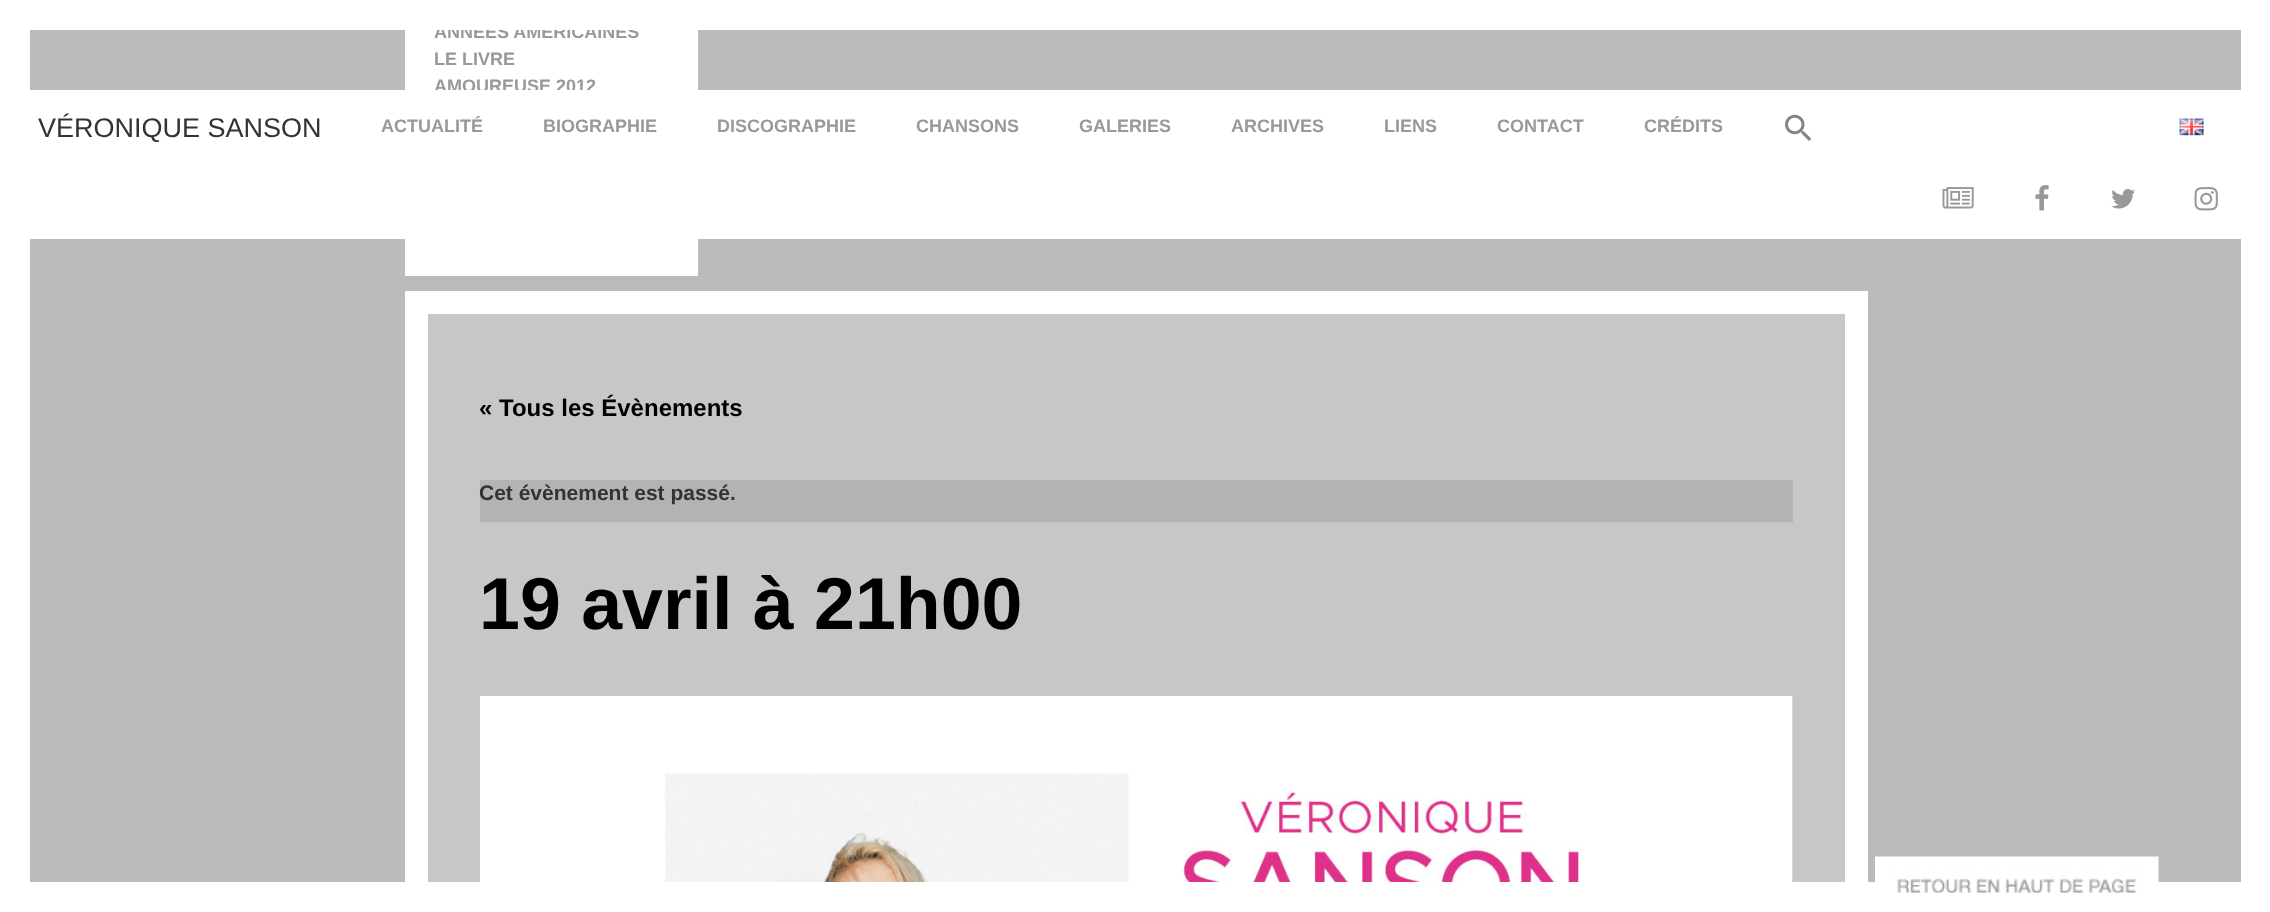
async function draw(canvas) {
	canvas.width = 2270;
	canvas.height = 912;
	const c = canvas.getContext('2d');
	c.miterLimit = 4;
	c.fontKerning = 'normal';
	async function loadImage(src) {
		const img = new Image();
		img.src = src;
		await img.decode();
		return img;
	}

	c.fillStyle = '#fff';
	c.fillRect(0, 0, 2270, 912);
	c.fillStyle = '#bbb';
	c.fillRect(30, 30, 2211, 852);
	c.fillStyle = '#fff';
	c.fillRect(405, 30, 293, 246);
	c.font = 'bold 18px Liberation Sans';
	c.fillStyle = '#999';
	for (const [text, x, y] of [
		['ANNÉES AMÉRICAINES', 434, 38],
		['LE LIVRE', 434, 65],
		['AMOUREUSE 2012', 434, 92],
	]) {
		c.fillText(text, x, y);
	}
	c.fillStyle = '#c7c7c7';
	c.fillRect(428, 314, 1417, 568);
	c.strokeStyle = '#fff';
	c.lineWidth = 23;
	c.strokeRect(416.5, 302.5, 1440, 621);
	c.font = 'bold 24px Liberation Sans';
	c.fillStyle = '#000';
	c.fillText('« Tous les Évènements', 479, 416);
	c.fillStyle = '#b3b3b3';
	c.fillRect(480, 480, 1313, 42);
	c.font = 'bold 21px Liberation Sans';
	c.fillStyle = '#333';
	c.fillText('Cet évènement est passé.', 479, 500);
	c.font = 'bold 73.5px Liberation Sans';
	c.fillStyle = '#000';
	c.fillText('19 avril à 21h00', 479, 629);
	c.drawImage(await loadImage('img1.png'), 480, 696, 1313, 186);
	c.drawImage(await loadImage('img2.png'), 1875, 856, 284, 37);
	c.fillStyle = '#fff';
	c.fillRect(437, 22, 202, 8);
	c.fillRect(30, 90, 2211, 149);
	c.font = '27px Liberation Sans';
	c.fillStyle = '#333';
	c.fillText('VÉRONIQUE SANSON', 38, 137);
	c.font = 'bold 18px Liberation Sans';
	c.fillStyle = '#999';
	for (const [text, x, y] of [
		['ACTUALITÉ', 381, 132],
		['BIOGRAPHIE', 543, 132],
		['DISCOGRAPHIE', 717, 132],
		['CHANSONS', 916, 132],
		['GALERIES', 1079, 132],
		['ARCHIVES', 1231, 132],
		['LIENS', 1384, 132],
		['CONTACT', 1497, 132],
		['CRÉDITS', 1644, 132],
	]) {
		c.fillText(text, x, y);
	}
	c.drawImage(await loadImage('img3.png'), 1785, 114, 27, 27);
	c.drawImage(await loadImage('img4.png'), 2179, 118, 25, 18);
	c.drawImage(await loadImage('img5.png'), 1942, 187, 32, 22);
	c.drawImage(await loadImage('img6.png'), 2035, 185, 14, 26);
	c.drawImage(await loadImage('img7.png'), 2111, 189, 24, 20);
	c.drawImage(await loadImage('img8.png'), 2194, 187, 24, 24);
}

draw(document.querySelector('canvas'));
